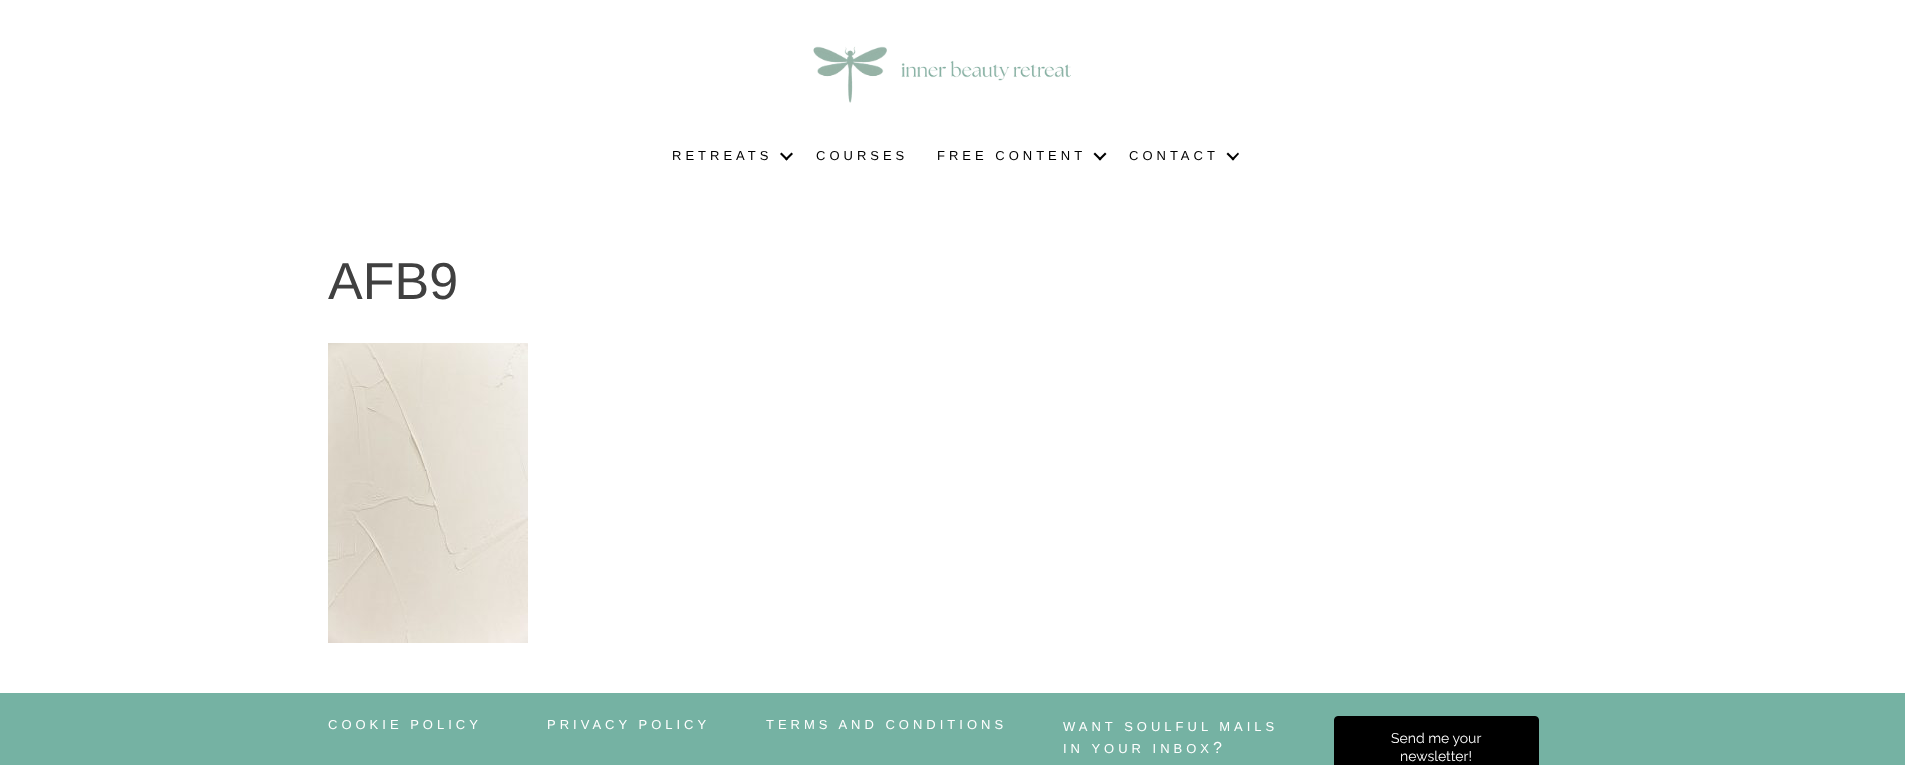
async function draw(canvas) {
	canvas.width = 1905;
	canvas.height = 765;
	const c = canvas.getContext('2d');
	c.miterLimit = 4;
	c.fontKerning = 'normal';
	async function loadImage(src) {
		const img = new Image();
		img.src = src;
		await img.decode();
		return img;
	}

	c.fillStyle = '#fff';
	c.fillRect(0, 0, 1905, 765);
	c.drawImage(await loadImage('img1.png'), 813, 46, 258, 57);
	c.letterSpacing = '4px';
	c.font = '13px Liberation Sans';
	c.fillStyle = '#000';
	c.fillText('RETREATS', 672, 160);
	c.beginPath();
	c.moveTo(791.5, 152.5);
	c.lineTo(793, 154);
	c.lineTo(786.5, 160.5);
	c.lineTo(785, 159);
	c.closePath();
	c.fill();
	c.beginPath();
	c.moveTo(781.5, 152.5);
	c.lineTo(788, 159);
	c.lineTo(786.5, 160.5);
	c.lineTo(780, 154);
	c.closePath();
	c.fill();
	c.fillText('COURSES', 816, 160);
	c.fillText('FREE CONTENT', 937, 160);
	c.beginPath();
	c.moveTo(1105, 152.5);
	c.lineTo(1106.5, 154);
	c.lineTo(1100, 160.5);
	c.lineTo(1098.5, 159);
	c.closePath();
	c.fill();
	c.beginPath();
	c.moveTo(1095, 152.5);
	c.lineTo(1101.5, 159);
	c.lineTo(1100, 160.5);
	c.lineTo(1093.5, 154);
	c.closePath();
	c.fill();
	c.fillText('CONTACT', 1129, 160);
	c.beginPath();
	c.moveTo(1238, 152.5);
	c.lineTo(1239, 154);
	c.lineTo(1233, 160.5);
	c.lineTo(1231.5, 159);
	c.closePath();
	c.fill();
	c.beginPath();
	c.moveTo(1228, 152.5);
	c.lineTo(1234.5, 159);
	c.lineTo(1233, 160.5);
	c.lineTo(1226.5, 154);
	c.closePath();
	c.fill();
	c.letterSpacing = '0px';
	c.font = '52px Liberation Sans';
	c.fillStyle = '#404040';
	c.fillText('AFB9', 328, 299);
	c.drawImage(await loadImage('img2.png'), 328, 343, 200, 300);
	c.fillStyle = '#75b2a3';
	c.fillRect(0, 693, 1905, 72);
	c.letterSpacing = '4px';
	c.font = '13px Liberation Sans';
	c.fillStyle = '#fff';
	for (const [text, x, y] of [
		['COOKIE POLICY', 328, 729],
		['PRIVACY POLICY', 547, 729],
		['TERMS AND CONDITIONS', 766, 729],
		['WANT SOULFUL MAILS', 1063, 731],
		['IN YOUR INBOX', 1063, 753],
	]) {
		c.fillText(text, x, y);
	}
	c.font = '16px Liberation Sans';
	c.fillText('?', 1213, 753);
	c.fillStyle = '#000';
	c.beginPath();
	c.roundRect(1334.5, 716.5, 204, 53, 3.5);
	c.fill();
	c.strokeStyle = '#000';
	c.stroke();
	c.letterSpacing = '0px';
	c.font = '14px Raleway';
	c.fillStyle = '#fff';
	c.fillText('Send me your', 1391, 743);
	c.fillText('newsletter!', 1400, 761);
}

draw(document.querySelector('canvas'));
